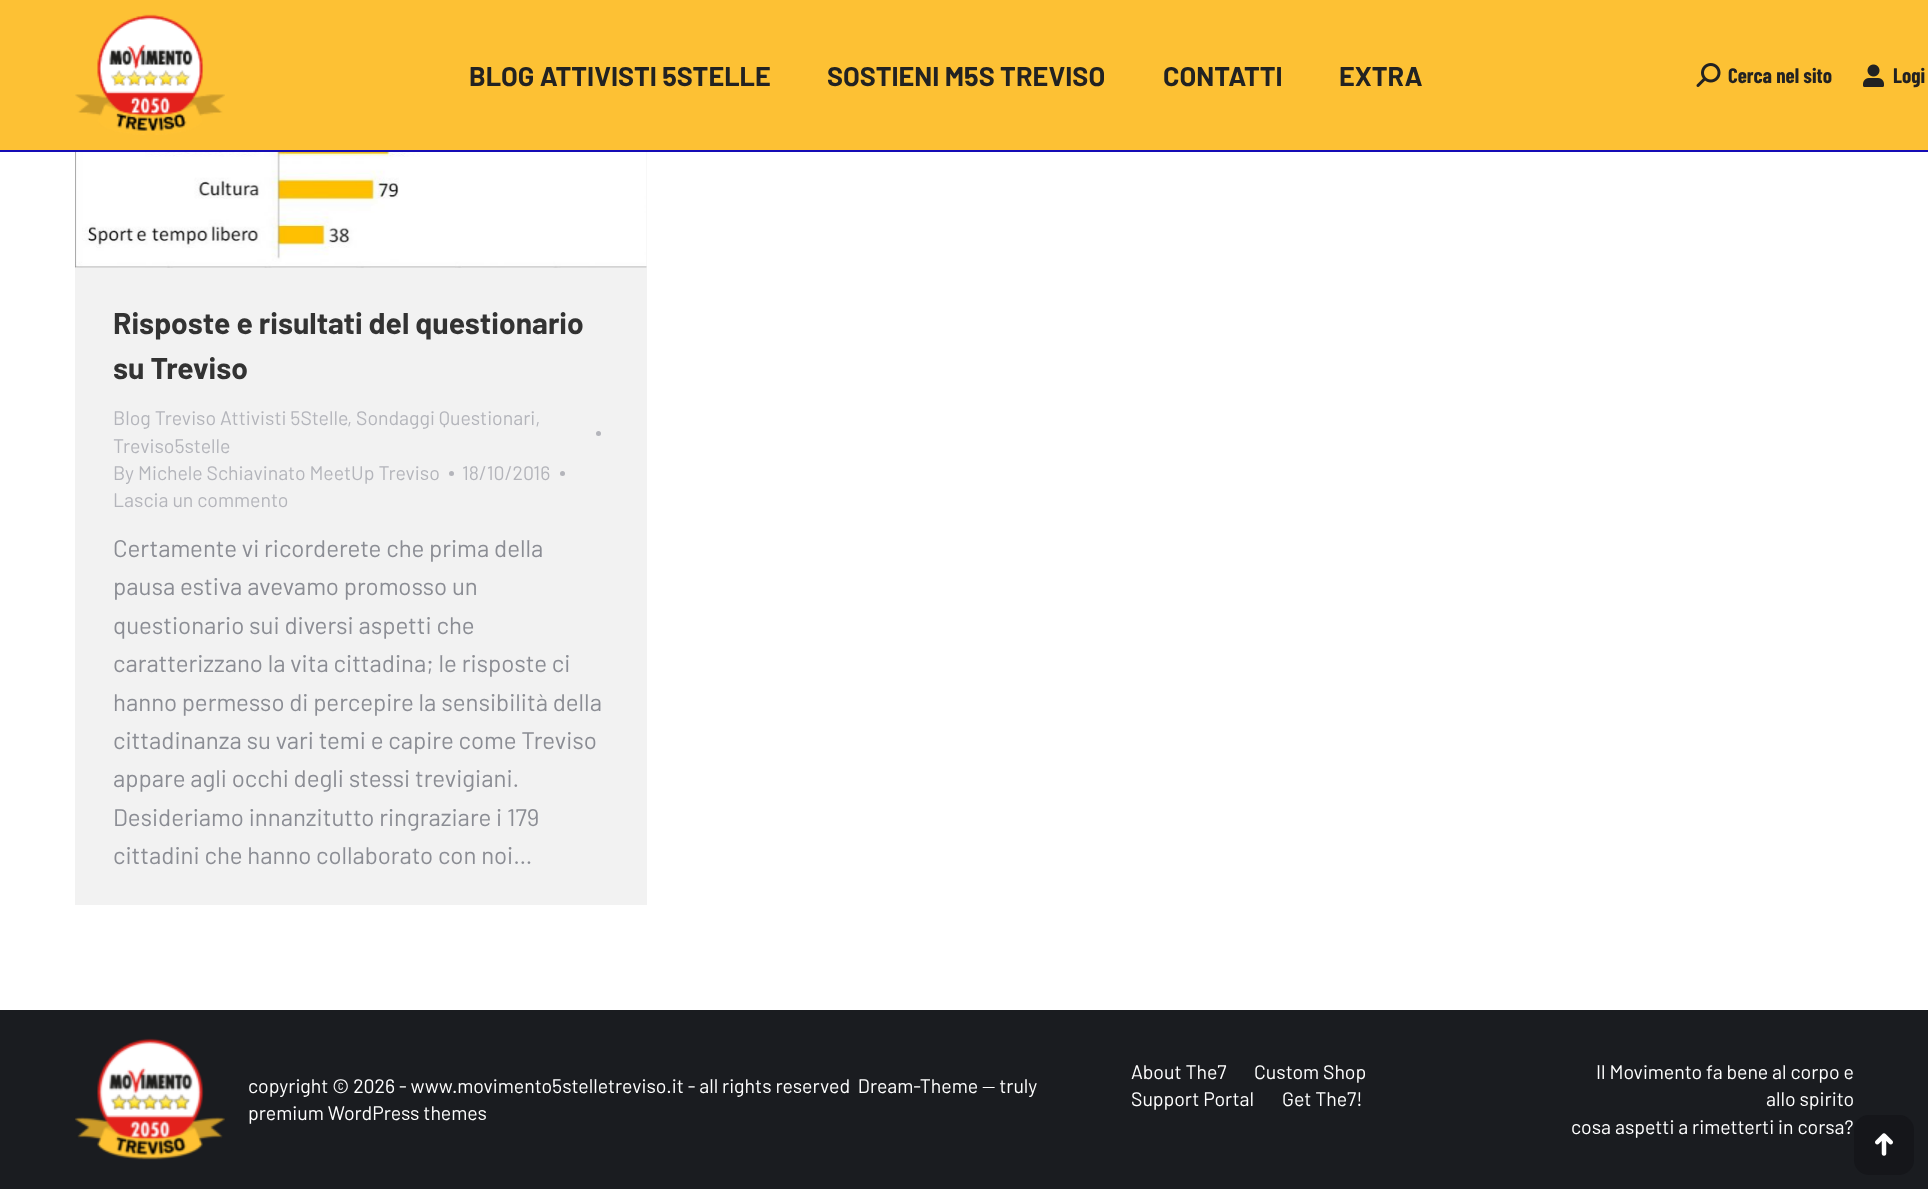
async function draw(canvas) {
	canvas.width = 1928;
	canvas.height = 1189;
	const c = canvas.getContext('2d');
	c.miterLimit = 4;
	c.fontKerning = 'normal';
	async function loadImage(src) {
		const img = new Image();
		img.src = src;
		await img.decode();
		return img;
	}

	c.fillStyle = '#fff';
	c.fillRect(0, 0, 1928, 1189);
	c.fillStyle = '#fdc134';
	c.fillRect(0, 0, 1928, 150);
	c.fillStyle = '#150cb5';
	c.fillRect(0, 150, 1928, 2);
	c.drawImage(await loadImage('img1.png'), 75, 14, 150, 121);
	c.font = 'bold 27px Barlow';
	c.fillStyle = '#222';
	for (const [text, x, y] of [
		['BLOG ATTIVISTI 5STELLE', 469, 86],
		['SOSTIENI M5S TREVISO', 827, 86],
		['CONTATTI', 1163, 86],
		['EXTRA', 1339, 86],
	]) {
		c.fillText(text, x, y);
	}
	c.drawImage(await loadImage('img2.png'), 1696, 63, 25, 24);
	c.font = 'bold 21px Barlow Condensed';
	c.fillText('Cerca nel sito', 1728, 83);
	c.drawImage(await loadImage('img3.png'), 1863, 64, 21, 23);
	c.fillText('Logi', 1893, 83);
	c.fillStyle = '#f2f2f2';
	c.fillRect(75, 152, 572, 753);
	c.drawImage(await loadImage('img4.png'), 75, 152, 572, 116);
	c.font = 'bold 30px Barlow';
	c.fillStyle = '#333';
	c.fillText('Risposte e risultati del questionario', 113, 334);
	c.fillText('su Treviso', 113, 379);
	c.font = '19.5px Barlow';
	c.fillStyle = '#b4b5bb';
	c.fillText('Blog Treviso Attivisti 5Stelle', 113, 425);
	c.fillText(', Sondaggi Questionari,', 347, 425);
	c.beginPath();
	c.arc(598.5, 433.5, 2.5, 0, 2 * Math.PI);
	c.fill();
	c.fillText('Treviso5stelle', 113, 453);
	c.fillText('By Michele Schiavinato MeetUp Treviso', 113, 480);
	c.beginPath();
	c.arc(451.5, 473.5, 2.5, 0, 2 * Math.PI);
	c.fill();
	c.fillText('18/10/2016', 462, 480);
	c.beginPath();
	c.arc(562.5, 473.5, 2.5, 0, 2 * Math.PI);
	c.fill();
	c.fillText('Lascia un commento', 113, 507);
	c.font = '24px Barlow';
	c.fillStyle = '#8b8d94';
	for (const [text, x, y] of [
		['Certamente vi ricorderete che prima della', 113, 557],
		['pausa estiva avevamo promosso un', 113, 595],
		['questionario sui diversi aspetti che', 113, 634],
		['caratterizzano la vita cittadina; le risposte ci', 113, 672],
		['hanno permesso di percepire la sensibilità della', 113, 711],
		['cittadinanza su vari temi e capire come Treviso', 113, 749],
		['appare agli occhi degli stessi trevigiani.', 113, 787],
		['Desideriamo innanzitutto ringraziare i 179', 113, 826],
		['cittadini che hanno collaborato con noi…', 113, 864],
	]) {
		c.fillText(text, x, y);
	}
	c.fillStyle = '#1a1c20';
	c.fillRect(0, 1010, 1928, 179);
	c.drawImage(await loadImage('img5.png'), 75, 1038, 150, 122);
	c.font = '19.5px Barlow';
	c.fillStyle = '#fff';
	for (const [text, x, y] of [
		['copyright © 2026 - www.movimento5stelletreviso.it - all rights reserved  Dream-Theme — truly', 248, 1093],
		['premium WordPress themes', 248, 1120],
		['About The7', 1131, 1079],
		['Custom Shop', 1254, 1079],
		['Support Portal', 1131, 1106],
		['Get The7!', 1282, 1106],
		['Il Movimento fa bene al corpo e', 1596, 1079],
		['allo spirito', 1766, 1106],
		['cosa aspetti a rimetterti in corsa?', 1571, 1134],
	]) {
		c.fillText(text, x, y);
	}
	c.fillStyle = '#15161a';
	c.beginPath();
	c.roundRect(1854, 1115, 60, 60, 15);
	c.fill();
	c.drawImage(await loadImage('img6.png'), 1875, 1133, 18, 23);
}

draw(document.querySelector('canvas'));
